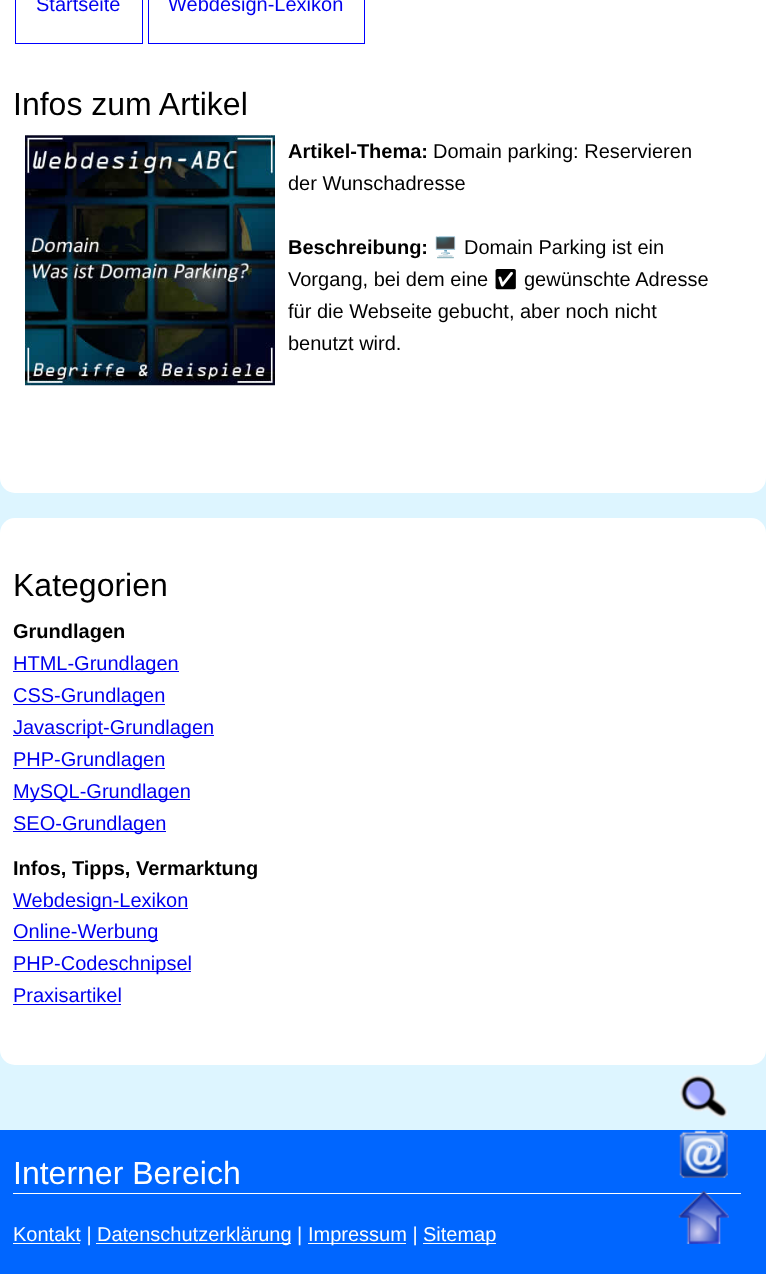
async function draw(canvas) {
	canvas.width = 766;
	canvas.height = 1274;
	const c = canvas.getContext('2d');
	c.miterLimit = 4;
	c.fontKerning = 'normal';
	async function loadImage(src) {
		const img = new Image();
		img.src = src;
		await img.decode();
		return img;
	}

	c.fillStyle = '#ddf5ff';
	c.fillRect(0, 0, 766, 1274);
	c.fillStyle = '#fff';
	c.beginPath();
	c.roundRect(0, -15, 766, 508, 15);
	c.fill();
	c.strokeStyle = '#00f';
	c.strokeRect(15.5, -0.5, 127, 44);
	c.font = '20px Liberation Sans';
	c.fillStyle = '#00e';
	c.fillText('Startseite', 36, 11);
	c.strokeRect(148.5, -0.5, 216, 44);
	c.fillText('Webdesign-Lexikon', 168, 11);
	c.font = '32px Liberation Sans';
	c.fillStyle = '#000';
	c.fillText('Infos zum Artikel', 13, 115);
	c.drawImage(await loadImage('img1.png'), 25, 135, 250, 251);
	c.font = 'bold 20px Liberation Sans';
	c.fillText('Artikel-Thema:', 288, 158);
	c.font = '20px Liberation Sans';
	c.fillText('Domain parking: Reservieren', 433, 158);
	c.fillText('der Wunschadresse', 288, 190);
	c.font = 'bold 20px Liberation Sans';
	c.fillText('Beschreibung:', 288, 254);
	c.font = '20px Noto Color Emoji';
	c.fillText('🖥', 433, 254);
	c.font = '20px Liberation Sans';
	c.fillText('Domain Parking ist ein', 464, 254);
	c.fillText('Vorgang, bei dem eine', 288, 286);
	c.font = '20px Noto Emoji';
	c.fillText('✅', 493, 286);
	c.font = '20px Liberation Sans';
	for (const [text, x, y] of [
		['gewünschte Adresse', 524, 286],
		['für die Webseite gebucht, aber noch nicht', 288, 318],
		['benutzt wird.', 288, 350],
	]) {
		c.fillText(text, x, y);
	}
	c.fillStyle = '#fff';
	c.beginPath();
	c.roundRect(0, 518, 766, 547, 15);
	c.fill();
	c.font = '32px Liberation Sans';
	c.fillStyle = '#000';
	c.fillText('Kategorien', 13, 596);
	c.font = 'bold 20px Liberation Sans';
	c.fillText('Grundlagen', 13, 638);
	c.fillStyle = '#00e';
	c.fillRect(13, 671, 166, 1);
	c.font = '20px Liberation Sans';
	c.fillText('HTML-Grundlagen', 13, 670);
	c.fillRect(13, 704, 152, 1);
	c.fillText('CSS-Grundlagen', 13, 702);
	c.fillRect(13, 735, 201, 1);
	c.fillText('Javascript-Grundlagen', 13, 734);
	c.fillRect(13, 768, 152, 1);
	c.fillText('PHP-Grundlagen', 13, 766);
	c.fillRect(13, 799, 177, 1);
	c.fillText('MySQL-Grundlagen', 13, 798);
	c.fillRect(13, 831, 153, 1);
	c.fillText('SEO-Grundlagen', 13, 830);
	c.font = 'bold 20px Liberation Sans';
	c.fillStyle = '#000';
	c.fillText('Infos, Tipps, Vermarktung', 13, 875);
	c.fillStyle = '#00e';
	c.fillRect(13, 908, 175, 1);
	c.font = '20px Liberation Sans';
	c.fillText('Webdesign-Lexikon', 13, 907);
	c.fillRect(13, 940, 145, 1);
	c.fillText('Online-Werbung', 13, 938);
	c.fillRect(13, 971, 178, 1);
	c.fillText('PHP-Codeschnipsel', 13, 970);
	c.fillText('Praxisartikel', 13, 1002);
	for (const [x, y, w, h, color] of [
		[13, 1004, 108, 1, '#00e'],
		[0, 1130, 766, 144, '#06f'],
		[13, 1193, 728, 1, '#fff'],
	]) {
		c.fillStyle = color;
		c.fillRect(x, y, w, h);
	}
	c.font = '32px Liberation Sans';
	c.fillText('Interner Bereich', 13, 1184);
	c.fillRect(13, 1243, 67, 1);
	c.font = '20px Liberation Sans';
	c.fillText('Kontakt |', 13, 1241);
	c.fillRect(96, 1243, 195, 1);
	c.fillText('Datenschutzerklärung |', 97, 1241);
	c.fillRect(308, 1243, 98, 1);
	c.fillText('Impressum |', 308, 1241);
	c.fillRect(423, 1243, 73, 1);
	c.fillText('Sitemap', 423, 1241);
	c.drawImage(await loadImage('img2.png'), 679, 1074, 49, 44);
	c.drawImage(await loadImage('img3.png'), 679, 1130, 49, 48);
	c.drawImage(await loadImage('img4.png'), 678, 1190, 51, 54);
}

draw(document.querySelector('canvas'));
